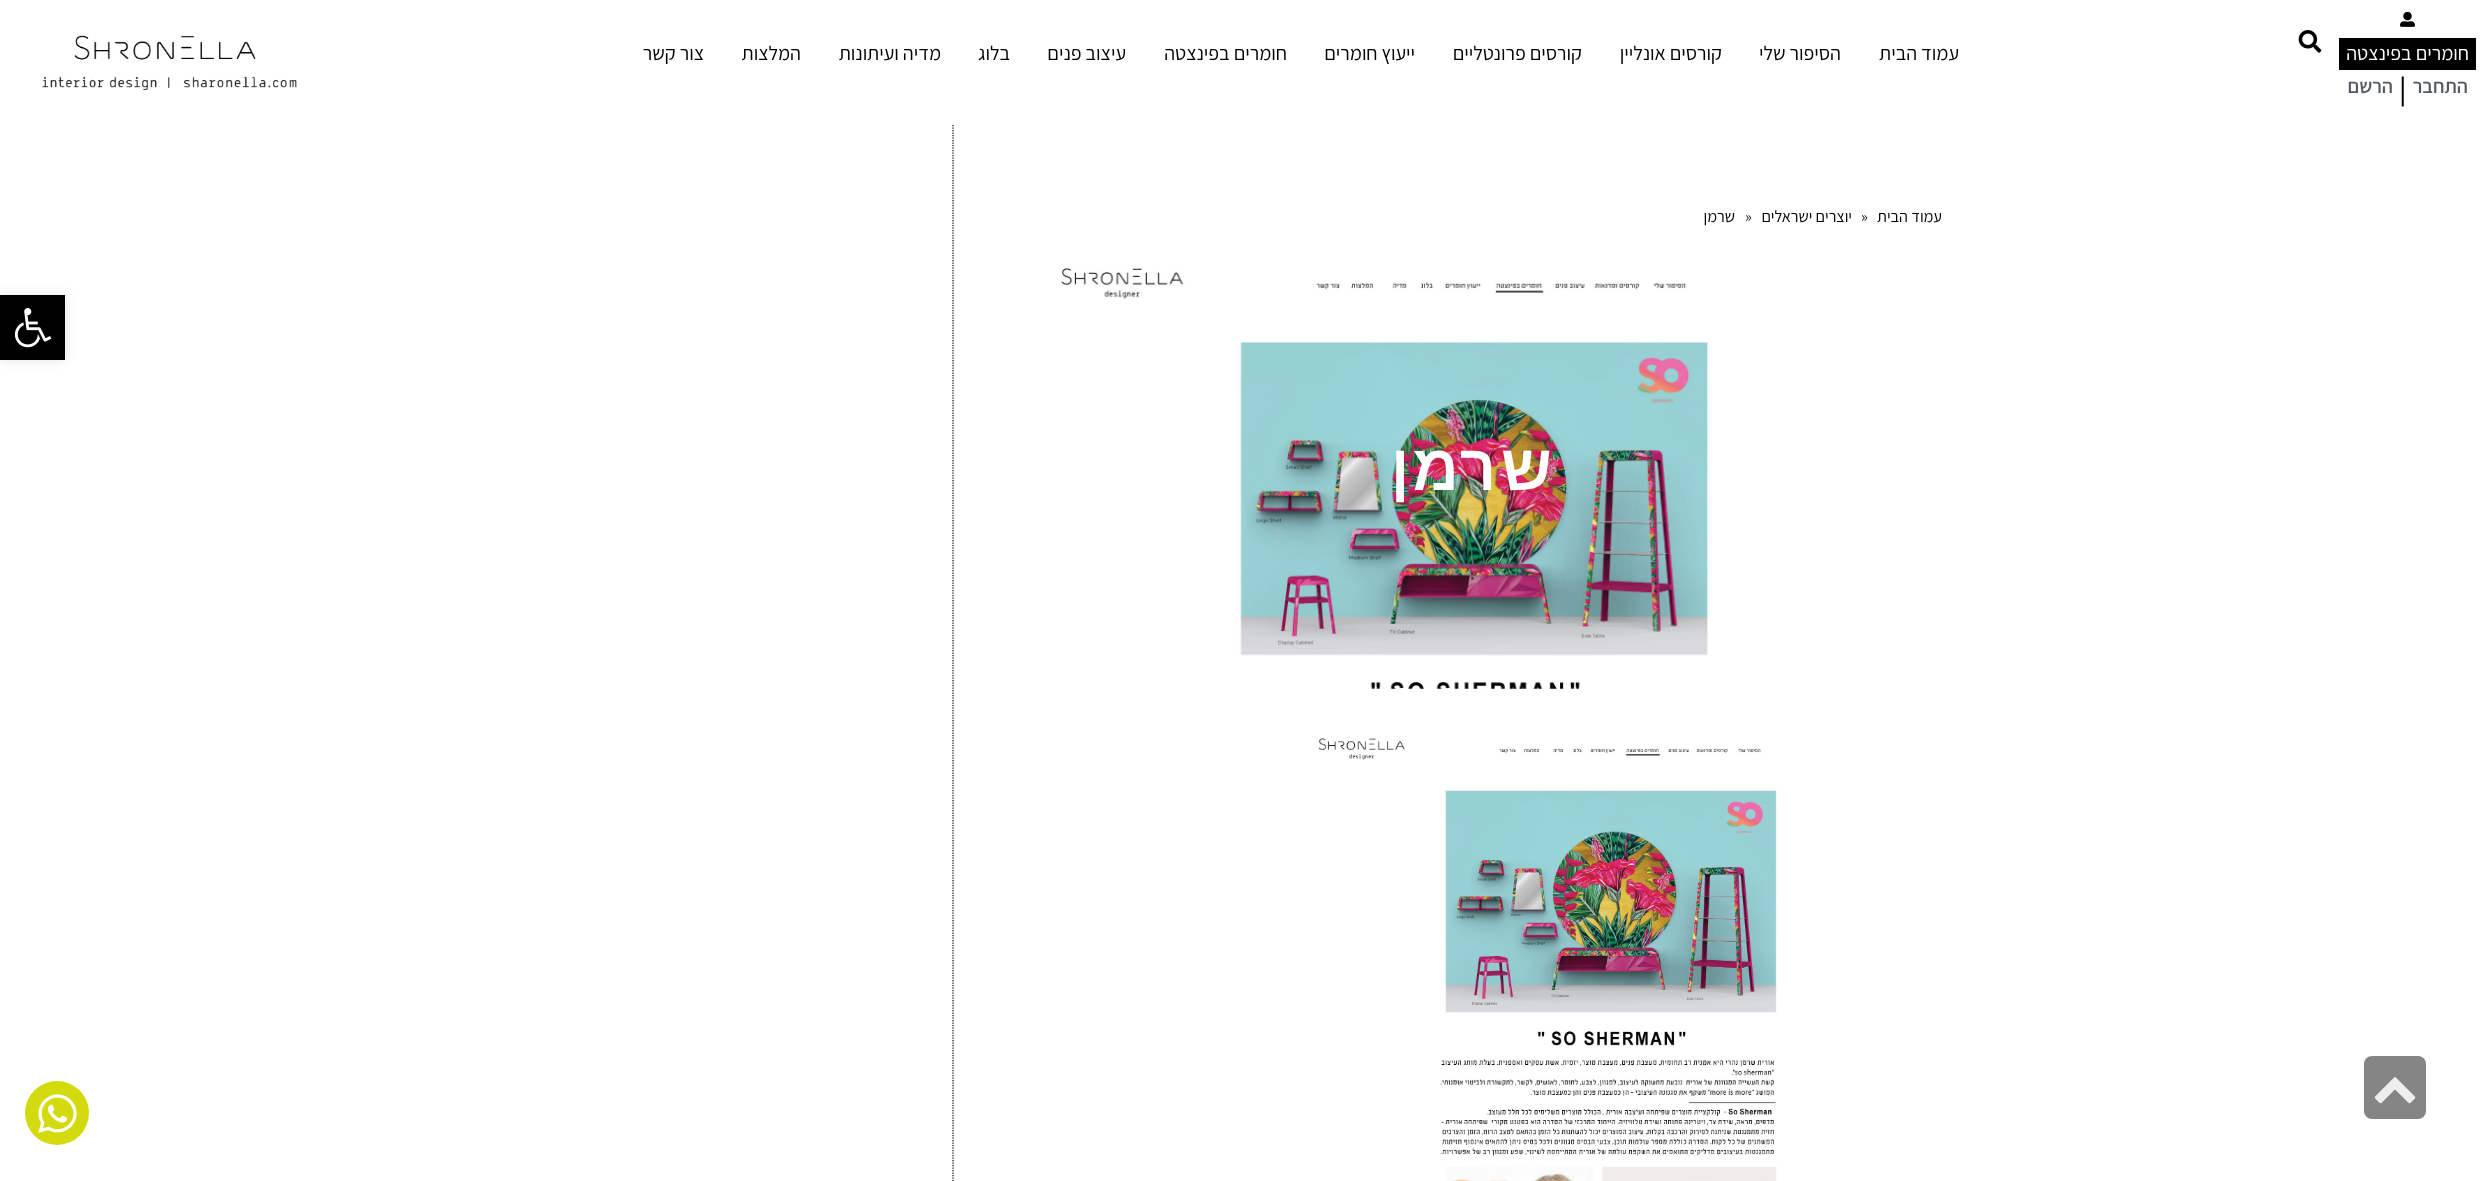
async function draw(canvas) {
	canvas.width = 2488;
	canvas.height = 1181;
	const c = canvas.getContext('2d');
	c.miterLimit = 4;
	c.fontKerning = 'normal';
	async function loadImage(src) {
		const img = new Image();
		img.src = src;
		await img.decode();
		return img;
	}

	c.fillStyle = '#fff';
	c.fillRect(0, 0, 2488, 1181);
	c.drawImage(await loadImage('img1.png'), 2298, 30, 24, 23);
	c.fillStyle = '#d3da0d';
	c.beginPath();
	c.arc(57, 1113, 32, 0, 2 * Math.PI);
	c.fill();
	c.drawImage(await loadImage('img2.png'), 38, 1094, 39, 39);
	c.drawImage(await loadImage('img3.png'), 2400, 11, 15, 16);
	c.fillStyle = '#000';
	c.fillRect(2339, 38, 137, 32);
	c.direction = 'rtl';
	c.font = '20px Assistant';
	c.fillStyle = '#fff';
	c.fillText('חומרים בפינצטה', 2469, 60);
	c.font = '600 20px Assistant';
	c.fillStyle = '#54595f';
	c.fillText('התחבר', 2468, 93);
	c.direction = 'ltr';
	c.font = '600 30px Assistant';
	c.fillStyle = '#000';
	c.fillText('|', 2399, 99);
	c.direction = 'rtl';
	c.font = '600 20px Assistant';
	c.fillStyle = '#54595f';
	c.fillText('הרשם', 2393, 93);
	c.font = '20px Assistant';
	c.fillStyle = '#000';
	for (const [text, x, y] of [
		['עמוד הבית', 1959, 60],
		['הסיפור שלי', 1841, 60],
		['קורסים אונליין', 1722, 60],
		['קורסים פרונטליים', 1582, 60],
		['ייעוץ חומרים', 1415, 60],
		['חומרים בפינצטה', 1287, 60],
		['עיצוב פנים', 1126, 60],
		['בלוג', 1010, 60],
		['מדיה ועיתונות', 941, 60],
		['המלצות', 801, 60],
		['צור קשר', 704, 60],
	]) {
		c.fillText(text, x, y);
	}
	c.drawImage(await loadImage('img4.png'), 42, 35, 255, 56);
	c.beginPath();
	c.moveTo(953, 125);
	c.lineTo(953, 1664);
	c.strokeStyle = '#000';
	c.lineWidth = 1.2;
	c.setLineDash([1.25, 1.25]);
	c.stroke();
	c.font = '16.25px Assistant';
	c.fillText('עמוד הבית', 1942, 222);
	c.direction = 'ltr';
	c.fillText('»', 1861, 222);
	c.direction = 'rtl';
	c.fillText('יוצרים ישראלים', 1852, 222);
	c.direction = 'ltr';
	c.fillText('»', 1745, 222);
	c.direction = 'rtl';
	c.fillText('שרמן', 1735, 222);
	c.drawImage(await loadImage('img5.png'), 1061, 267, 649, 422);
	c.letterSpacing = '3px';
	c.font = '600 65px Arimo';
	c.fillStyle = '#fff';
	c.fillText('שרמן', 1555, 490);
	c.drawImage(await loadImage('img6.png'), 1318, 738, 460, 443);
	c.fillStyle = '#0000001a';
	c.filter = 'blur(6px)';
	c.beginPath();
	c.rect(0, 295, 65, 65);
	c.fill();
	c.filter = 'none';
	c.fillStyle = '#000';
	c.fillRect(0, 295, 65, 65);
	c.drawImage(await loadImage('img7.png'), 14, 308, 38, 40);
	c.fillStyle = '#858585';
	c.beginPath();
	c.roundRect(2364, 1056, 62, 63, 8);
	c.fill();
	c.drawImage(await loadImage('img8.png'), 2374, 1077, 42, 27);
}

draw(document.querySelector('canvas'));
